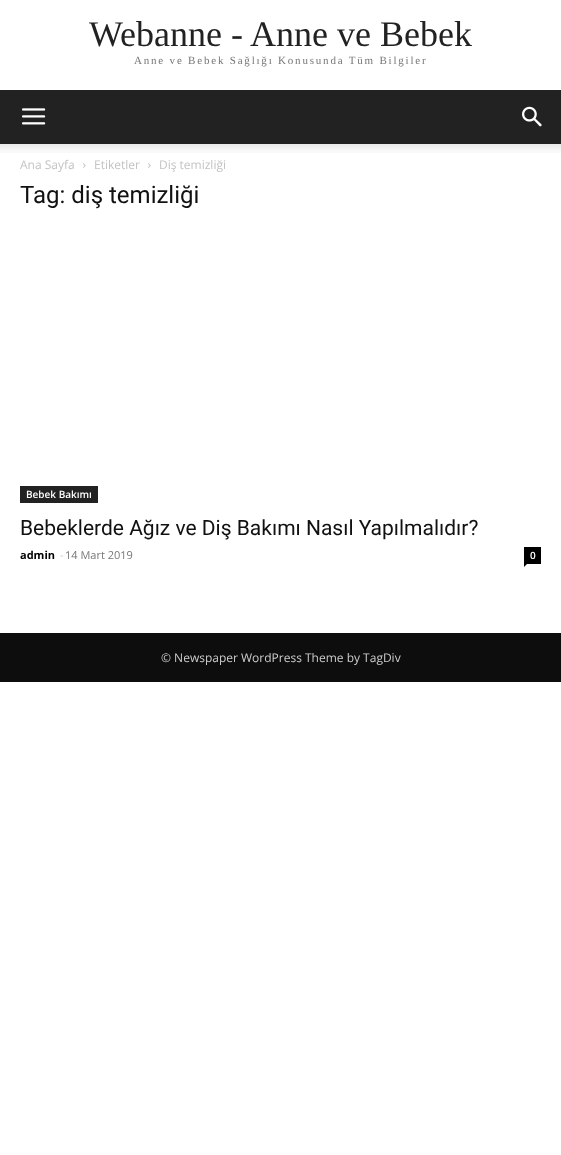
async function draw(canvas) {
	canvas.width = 561;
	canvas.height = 1155;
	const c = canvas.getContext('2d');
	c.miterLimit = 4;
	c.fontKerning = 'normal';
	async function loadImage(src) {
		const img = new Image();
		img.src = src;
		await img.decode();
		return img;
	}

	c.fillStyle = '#fff';
	c.fillRect(0, 0, 561, 1155);
	c.font = '36px Liberation Serif';
	c.fillStyle = '#222';
	c.fillText('Webanne - Anne ve Bebek', 89, 46);
	c.letterSpacing = '1.8px';
	c.font = '11px Liberation Serif';
	c.fillStyle = '#767676';
	c.fillText('Anne ve Bebek Sağlığı Konusunda Tüm Bilgiler', 134, 64);
	c.fillStyle = '#222';
	c.fillRect(0, 90, 561, 54);
	c.drawImage(await loadImage('img1.png'), 22, 108, 24, 17);
	c.drawImage(await loadImage('img2.png'), 522, 106, 20, 21);
	c.drawImage(await loadImage('img3.png'), 0, 144, 561, 9);
	c.letterSpacing = '0px';
	c.font = '12px Open Sans';
	c.fillStyle = '#c3c3c3';
	c.fillText('Ana Sayfa', 20, 169);
	c.drawImage(await loadImage('img4.png'), 83, 163, 3, 5);
	c.fillText('Etiketler', 94, 169);
	c.drawImage(await loadImage('img4.png'), 148, 163, 3, 5);
	c.fillText('Diş temizliği', 159, 169);
	c.font = '24px Roboto';
	c.fillStyle = '#111';
	c.fillText('Tag: diş temizliği', 20, 203);
	c.fillStyle = '#222';
	c.fillRect(20, 486, 78, 17);
	c.font = '600 10px Open Sans';
	c.fillStyle = '#fff';
	c.fillText('Bebek Bakımı', 26, 498);
	c.font = '21px Roboto';
	c.fillStyle = '#111';
	c.fillText('Bebeklerde Ağız ve Diş Bakımı Nasıl Yapılmalıdır?', 20, 535);
	c.font = 'bold 11px Open Sans';
	c.fillStyle = '#000';
	c.fillText('admin', 20, 559);
	c.font = '11px Open Sans';
	c.fillStyle = '#ccc';
	c.fillText('-', 60, 559);
	c.fillStyle = '#767676';
	c.fillText('14 Mart 2019', 65, 559);
	c.fillStyle = '#000';
	c.fillRect(524, 547, 17, 17);
	c.font = '600 10px Open Sans';
	c.fillStyle = '#fff';
	c.fillText('0', 530, 559);
	c.fillStyle = '#000';
	c.beginPath();
	c.moveTo(524, 564);
	c.lineTo(527, 564);
	c.lineTo(524, 567);
	c.closePath();
	c.fill();
	c.fillStyle = '#0d0d0d';
	c.fillRect(0, 633, 561, 49);
	c.font = '12px Open Sans';
	c.fillStyle = '#ccc';
	c.fillText('© Newspaper WordPress Theme by TagDiv', 161, 662);
}

draw(document.querySelector('canvas'));
